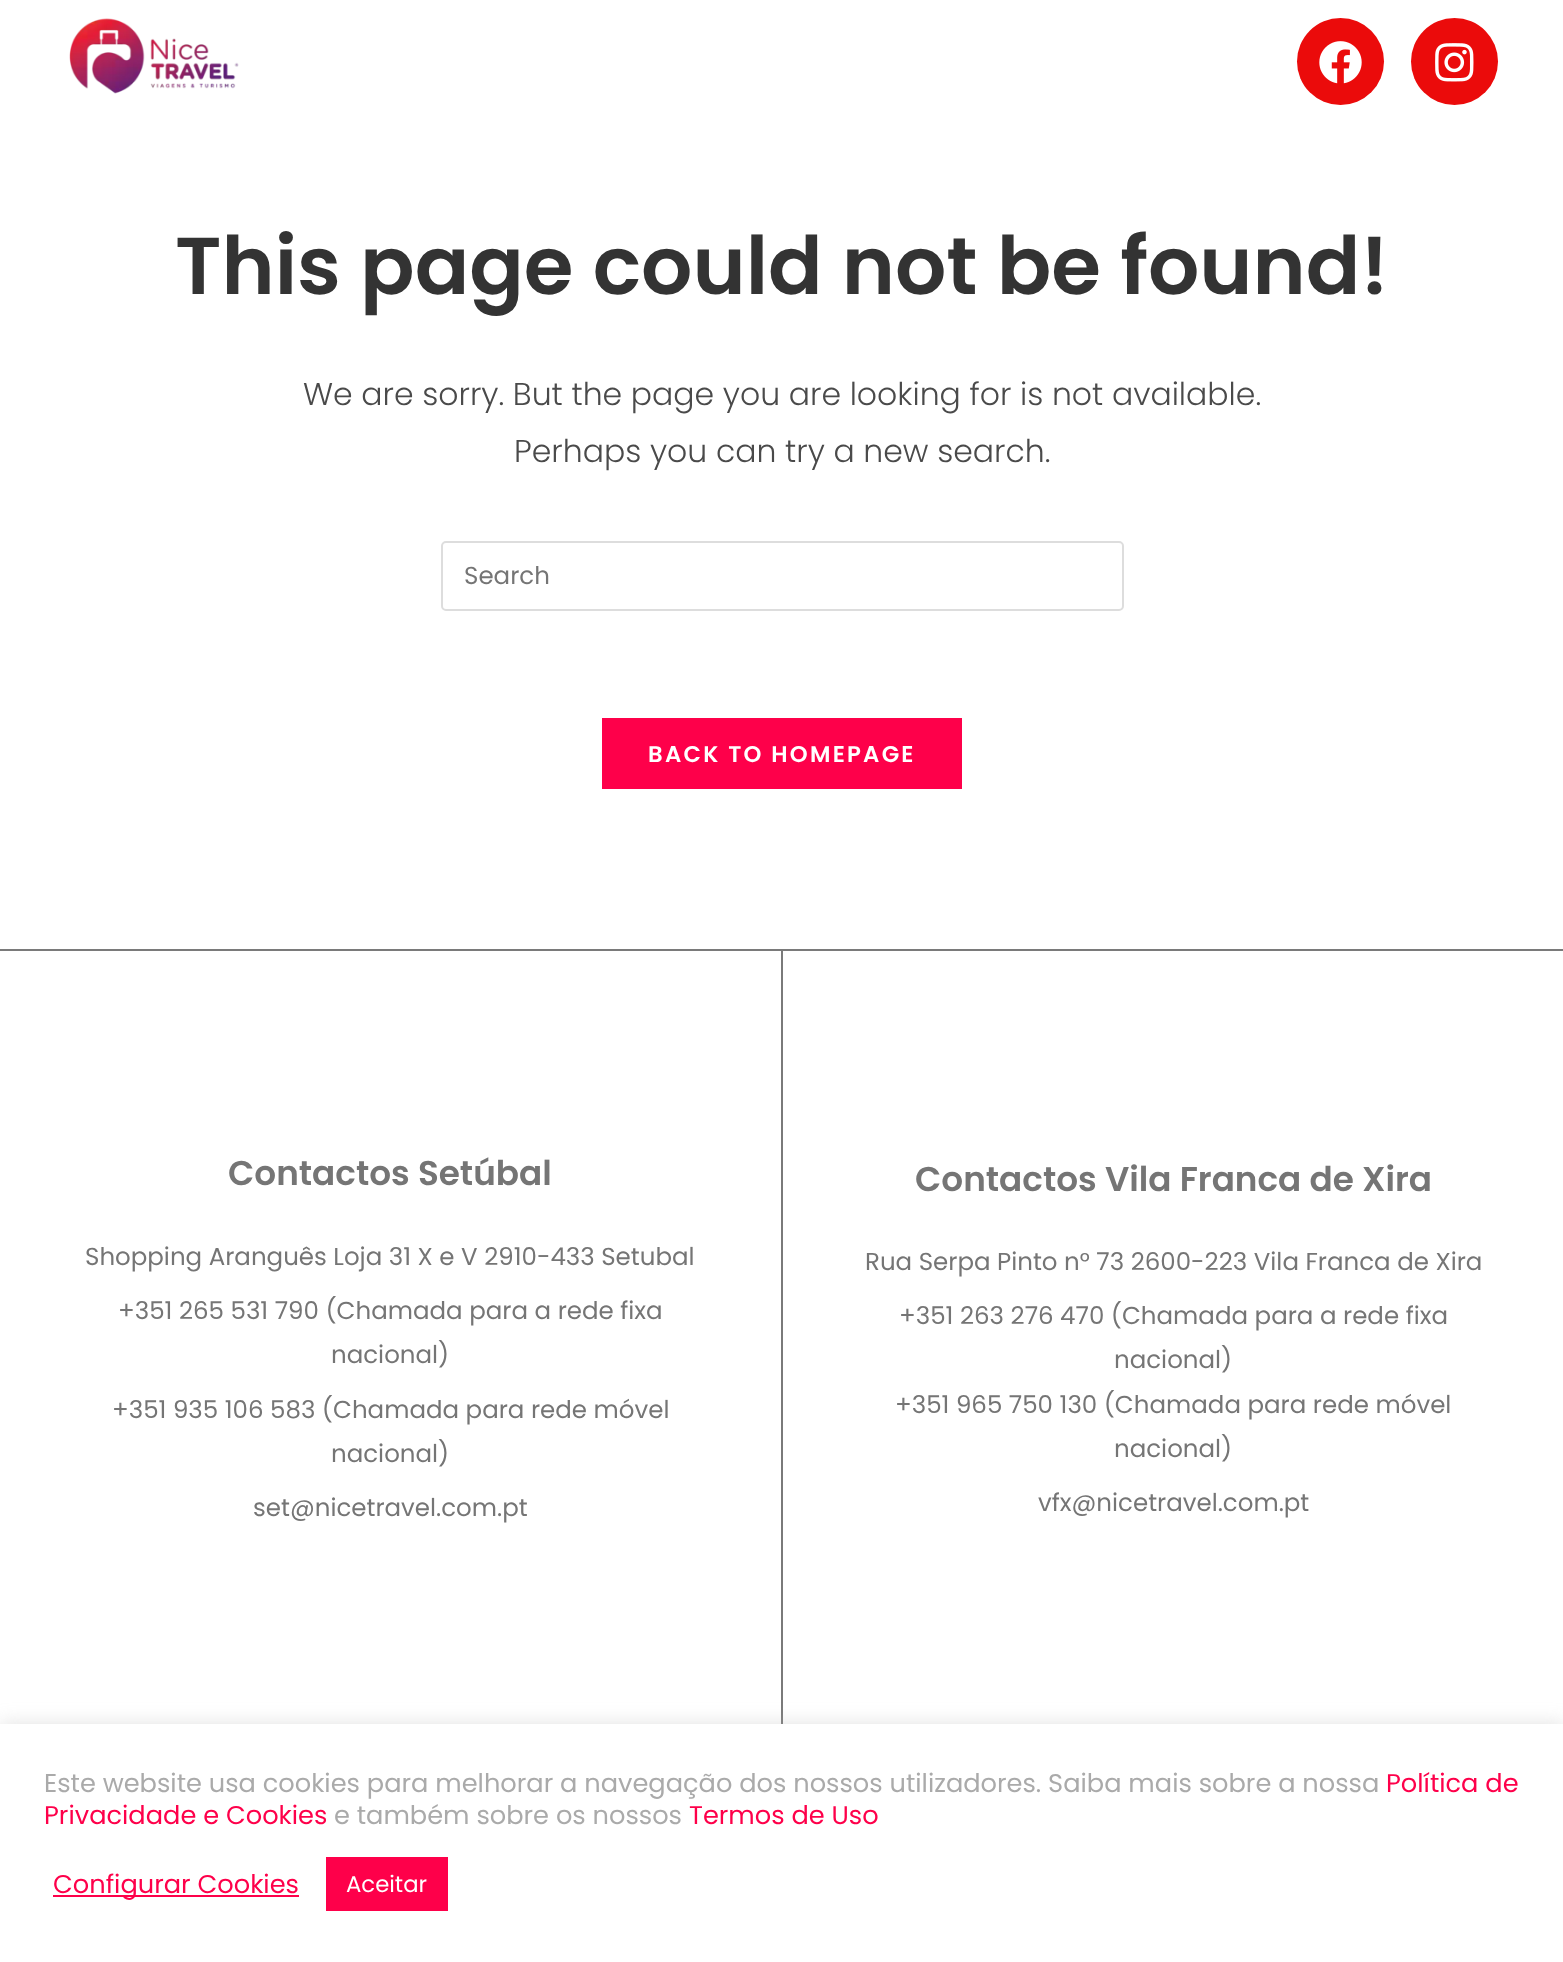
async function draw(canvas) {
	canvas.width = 1563;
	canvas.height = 1962;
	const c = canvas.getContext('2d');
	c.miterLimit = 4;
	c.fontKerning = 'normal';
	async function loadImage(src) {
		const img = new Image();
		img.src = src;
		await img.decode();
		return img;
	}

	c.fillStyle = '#fff';
	c.fillRect(0, 0, 1563, 1962);
	c.drawImage(await loadImage('img1.png'), 69, 18, 170, 76);
	c.fillStyle = '#eb0b0b';
	c.beginPath();
	c.arc(1340.5, 61.5, 43.5, 0, 2 * Math.PI);
	c.fill();
	c.drawImage(await loadImage('img2.png'), 1319, 41, 43, 43);
	c.beginPath();
	c.arc(1454.5, 61.5, 43.5, 0, 2 * Math.PI);
	c.fill();
	c.drawImage(await loadImage('img3.png'), 1435, 43, 39, 39);
	c.font = '600 80.5px Poppins';
	c.fillStyle = '#333';
	c.fillText('This page could not be found!', 175, 294);
	c.font = '300 31.5px Poppins';
	c.fillStyle = '#4a4a4a';
	c.fillText('We are sorry. But the page you are looking for is not available.', 303, 405);
	c.fillText('Perhaps you can try a new search.', 514, 462);
	c.beginPath();
	c.roundRect(442, 542, 681, 68, 4);
	c.strokeStyle = '#ddd';
	c.lineWidth = 2;
	c.stroke();
	c.font = '24.5px Poppins';
	c.fillStyle = '#757575';
	c.fillText('Search', 464, 584);
	c.fillStyle = '#fe004a';
	c.fillRect(602, 718, 360, 71);
	c.letterSpacing = '2.25px';
	c.font = '600 22.75px Poppins';
	c.fillStyle = '#fff';
	c.fillText('BACK TO HOMEPAGE', 648, 762);
	c.fillStyle = '#7a7a7a';
	c.fillRect(0, 949, 1563, 2);
	c.fillRect(781, 950, 2, 774);
	c.letterSpacing = '0px';
	c.font = '600 34.25px Poppins';
	c.fillStyle = '#757575';
	c.fillText('Contactos Setúbal', 228, 1185);
	c.font = '24.5px Poppins';
	for (const [text, x, y] of [
		['Shopping Aranguês Loja 31 X e V 2910-433 Setubal', 85, 1265],
		['+351 265 531 790 (Chamada para a rede fixa', 118, 1319],
		['nacional)', 331, 1363],
		['+351 935 106 583 (Chamada para rede móvel', 112, 1418],
		['nacional)', 331, 1462],
		['set@nicetravel.com.pt', 253, 1516],
	]) {
		c.fillText(text, x, y);
	}
	c.font = '600 34.25px Poppins';
	c.fillText('Contactos Vila Franca de Xira', 915, 1191);
	c.font = '24.5px Poppins';
	for (const [text, x, y] of [
		['Rua Serpa Pinto n° 73 2600-223 Vila Franca de Xira', 865, 1270],
		['+351 263 276 470 (Chamada para a rede fixa', 899, 1324],
		['nacional)', 1114, 1368],
		['+351 965 750 130 (Chamada para rede móvel', 895, 1413],
		['nacional)', 1114, 1457],
		['vfx@nicetravel.com.pt', 1038, 1511],
	]) {
		c.fillText(text, x, y);
	}
	c.fillStyle = '#acabab4d';
	c.filter = 'blur(9px)';
	c.beginPath();
	c.rect(0, 1722, 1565, 240);
	c.fill();
	c.filter = 'none';
	c.fillStyle = '#fff';
	c.fillRect(0, 1724, 1563, 238);
	c.font = '25.67px Poppins';
	c.fillStyle = '#aaa';
	c.fillText('Este website usa cookies para melhorar a navegação dos nossos utilizadores. Saiba mais sobre a nossa', 44, 1792);
	c.fillStyle = '#fe004a';
	c.fillText('Política de', 1386, 1792);
	c.fillText('Privacidade e Cookies', 44, 1824);
	c.fillStyle = '#aaa';
	c.fillText('e também sobre os nossos', 334, 1824);
	c.fillStyle = '#fe004a';
	c.fillText('Termos de Uso', 689, 1824);
	c.fillRect(53, 1895, 246, 2);
	c.fillText('Configurar Cookies', 53, 1893);
	c.fillRect(326, 1857, 122, 54);
	c.font = '22.75px Poppins';
	c.fillStyle = '#fff';
	c.fillText('Aceitar', 346, 1892);
}

draw(document.querySelector('canvas'));
